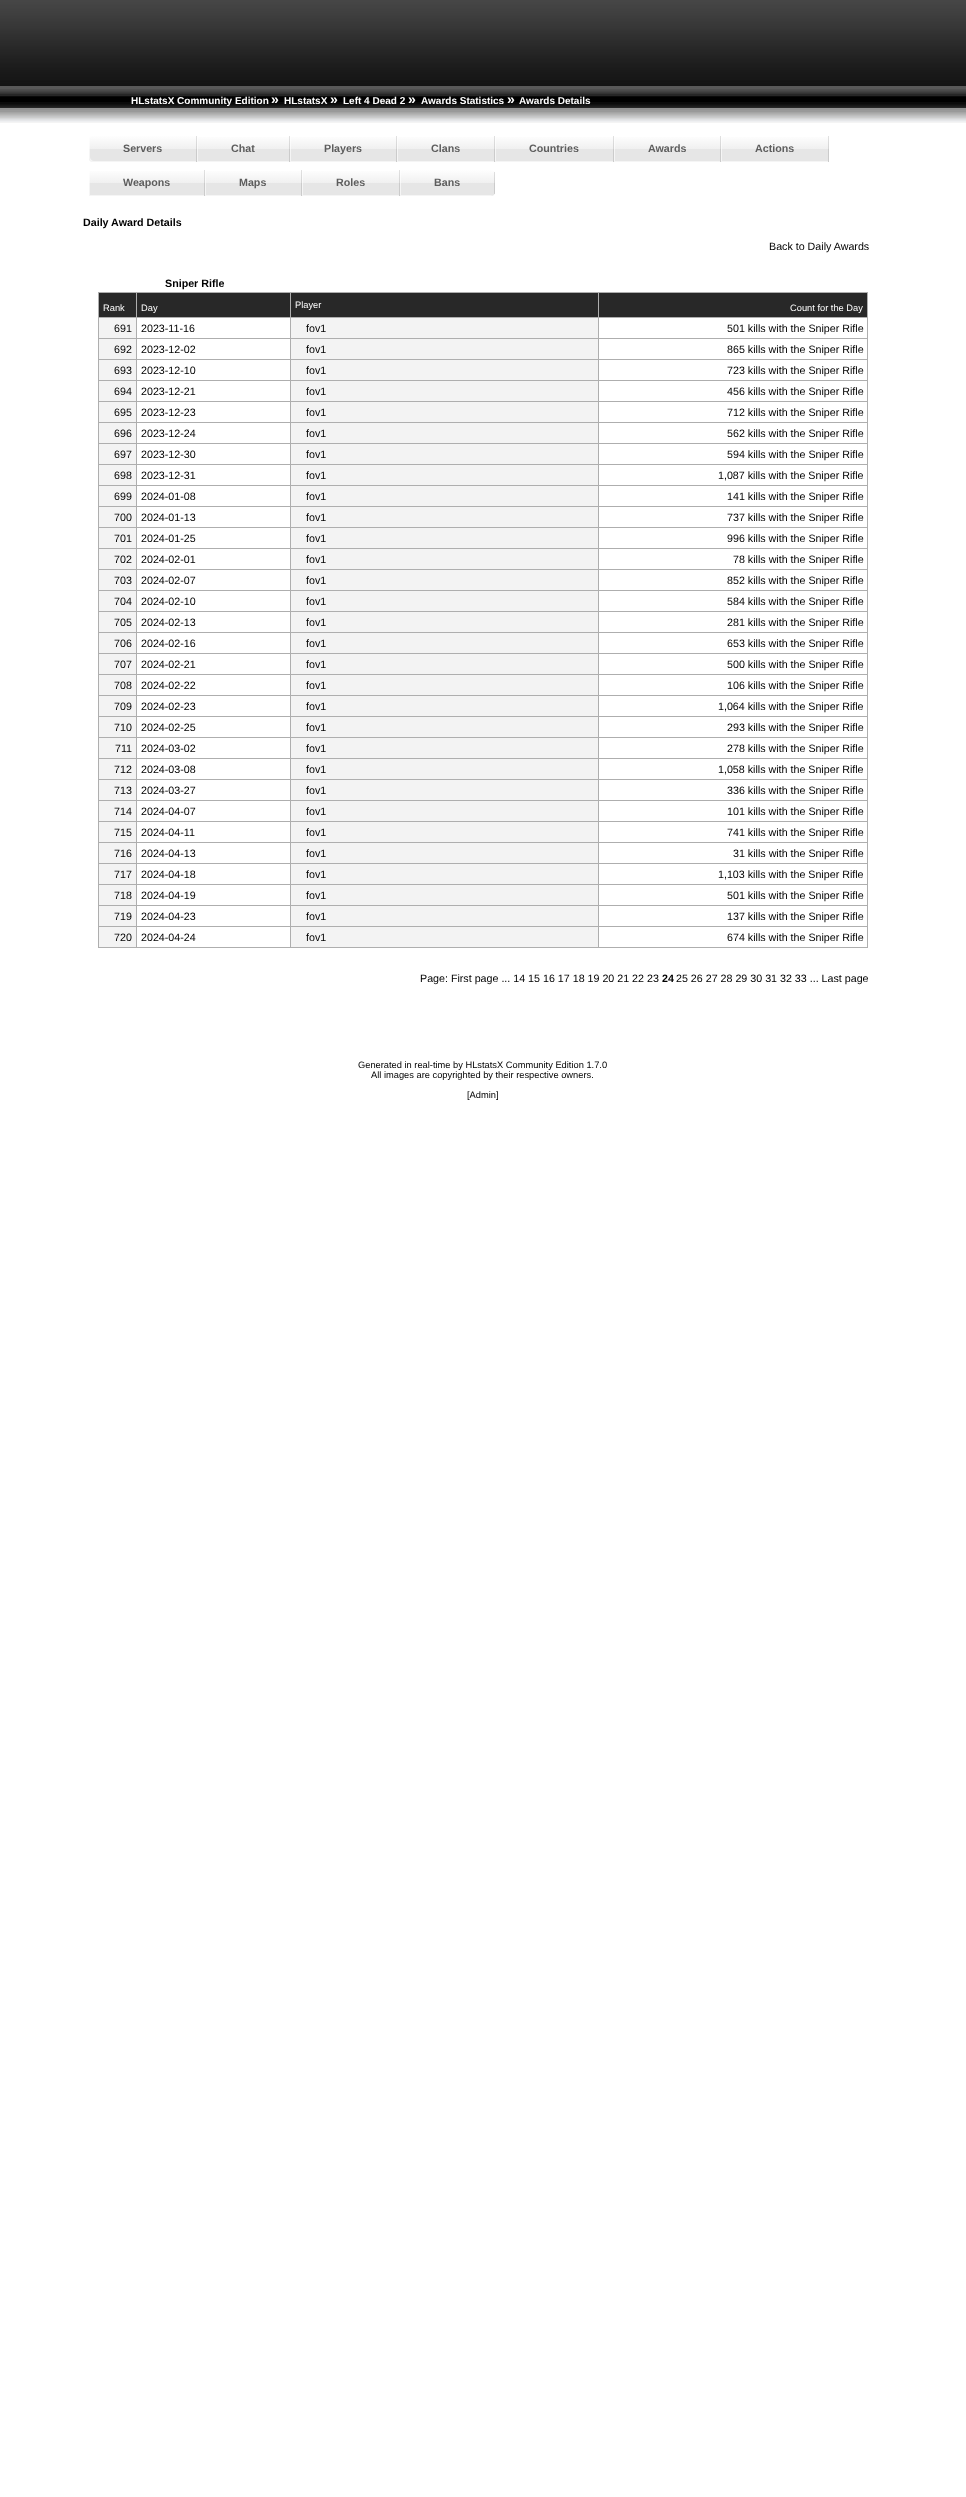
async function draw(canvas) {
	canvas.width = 966;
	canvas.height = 2497;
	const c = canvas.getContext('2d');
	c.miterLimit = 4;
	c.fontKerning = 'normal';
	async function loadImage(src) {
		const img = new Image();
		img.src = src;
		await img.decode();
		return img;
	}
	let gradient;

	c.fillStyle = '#fff';
	c.fillRect(0, 0, 966, 2497);
	c.drawImage(await loadImage('img1.png'), 0, 0, 966, 86);
	c.drawImage(await loadImage('img2.png'), 0, 86, 966, 22);
	c.font = 'bold 10px Liberation Sans';
	c.fillText('HLstatsX Community Edition', 131, 104);
	c.font = 'bold 14px Liberation Sans';
	c.fillText('»', 271, 104);
	c.font = 'bold 10px Liberation Sans';
	c.fillText('HLstatsX', 284, 104);
	c.font = 'bold 14px Liberation Sans';
	c.fillText('»', 330, 104);
	c.font = 'bold 10px Liberation Sans';
	c.fillText('Left 4 Dead 2', 343, 104);
	c.font = 'bold 14px Liberation Sans';
	c.fillText('»', 408, 104);
	c.font = 'bold 10px Liberation Sans';
	c.fillText('Awards Statistics', 421, 104);
	c.font = 'bold 14px Liberation Sans';
	c.fillText('»', 507, 104);
	c.font = 'bold 10px Liberation Sans';
	c.fillText('Awards Details', 519, 104);
	c.drawImage(await loadImage('img3.png'), 0, 108, 966, 15);
	gradient = c.createLinearGradient(143, 136, 143, 162);
	gradient.addColorStop(0, '#fefefe');
	gradient.addColorStop(0.5, '#f0f0f0');
	gradient.addColorStop(0.51, '#e6e6e6');
	c.fillStyle = gradient;
	c.beginPath();
	c.roundRect(89, 136, 108, 26, [4, 0, 0, 4]);
	c.fill();
	gradient = c.createLinearGradient(143, 136, 143, 162);
	gradient.addColorStop(0, '#e1e1e1');
	gradient.addColorStop(0.5, '#d4d4d4');
	gradient.addColorStop(0.51, '#cbcbcb');
	c.fillStyle = gradient;
	c.fillRect(196, 136, 1, 26);
	c.fillStyle = '#ffffff99';
	c.beginPath();
	c.moveTo(91, 137);
	c.lineTo(90, 139);
	c.lineTo(90, 157);
	c.bezierCurveTo(90, 159, 92, 161, 94, 161);
	c.lineTo(196, 161);
	c.lineTo(196, 162);
	c.lineTo(93, 162);
	c.bezierCurveTo(91, 162, 89, 160, 89, 158);
	c.lineTo(89, 140);
	c.bezierCurveTo(89, 139, 90, 137, 91, 137);
	c.closePath();
	c.fill();
	c.font = 'bold 10.7px Liberation Sans';
	c.fillStyle = '#5d5d5d';
	c.fillText('Servers', 123, 152);
	gradient = c.createLinearGradient(243, 136, 243, 162);
	gradient.addColorStop(0, '#fefefe');
	gradient.addColorStop(0.5, '#f0f0f0');
	gradient.addColorStop(0.51, '#e6e6e6');
	c.fillStyle = gradient;
	c.fillRect(197, 137, 92, 25);
	gradient = c.createLinearGradient(243, 136, 243, 162);
	gradient.addColorStop(0, '#e1e1e1');
	gradient.addColorStop(0.5, '#d4d4d4');
	gradient.addColorStop(0.51, '#cbcbcb');
	c.fillStyle = gradient;
	c.fillRect(289, 136, 1, 26);
	c.save();
	c.beginPath();
	c.rect(197, 136, 92, 26);
	c.clip();
	c.fillStyle = '#ffffff99';
	c.beginPath();
	c.moveTo(98, 204);
	c.lineTo(98, 136);
	c.lineTo(198, 136);
	c.lineTo(198, 161);
	c.lineTo(290, 161);
	c.lineTo(290, 136);
	c.lineTo(388, 136);
	c.lineTo(388, 204);
	c.closePath();
	c.fill();
	c.restore();
	c.fillStyle = '#5d5d5d';
	c.fillText('Chat', 231, 152);
	gradient = c.createLinearGradient(343, 136, 343, 162);
	gradient.addColorStop(0, '#fefefe');
	gradient.addColorStop(0.5, '#f0f0f0');
	gradient.addColorStop(0.51, '#e6e6e6');
	c.fillStyle = gradient;
	c.fillRect(290, 137, 106, 25);
	gradient = c.createLinearGradient(343, 136, 343, 162);
	gradient.addColorStop(0, '#e1e1e1');
	gradient.addColorStop(0.5, '#d4d4d4');
	gradient.addColorStop(0.51, '#cbcbcb');
	c.fillStyle = gradient;
	c.fillRect(396, 136, 1, 26);
	c.save();
	c.beginPath();
	c.rect(290, 136, 106, 26);
	c.clip();
	c.fillStyle = '#ffffff99';
	c.beginPath();
	c.moveTo(191, 204);
	c.lineTo(191, 136);
	c.lineTo(291, 136);
	c.lineTo(291, 161);
	c.lineTo(397, 161);
	c.lineTo(397, 136);
	c.lineTo(495, 136);
	c.lineTo(495, 204);
	c.closePath();
	c.fill();
	c.restore();
	c.fillStyle = '#5d5d5d';
	c.fillText('Players', 324, 152);
	gradient = c.createLinearGradient(446, 136, 446, 162);
	gradient.addColorStop(0, '#fefefe');
	gradient.addColorStop(0.5, '#f0f0f0');
	gradient.addColorStop(0.51, '#e6e6e6');
	c.fillStyle = gradient;
	c.fillRect(397, 137, 97, 25);
	gradient = c.createLinearGradient(446, 136, 446, 162);
	gradient.addColorStop(0, '#e1e1e1');
	gradient.addColorStop(0.5, '#d4d4d4');
	gradient.addColorStop(0.51, '#cbcbcb');
	c.fillStyle = gradient;
	c.fillRect(494, 136, 1, 26);
	c.save();
	c.beginPath();
	c.rect(397, 136, 97, 26);
	c.clip();
	c.fillStyle = '#ffffff99';
	c.beginPath();
	c.moveTo(298, 204);
	c.lineTo(298, 136);
	c.lineTo(398, 136);
	c.lineTo(398, 161);
	c.lineTo(495, 161);
	c.lineTo(495, 136);
	c.lineTo(593, 136);
	c.lineTo(593, 204);
	c.closePath();
	c.fill();
	c.restore();
	c.fillStyle = '#5d5d5d';
	c.fillText('Clans', 431, 152);
	gradient = c.createLinearGradient(554, 136, 554, 162);
	gradient.addColorStop(0, '#fefefe');
	gradient.addColorStop(0.5, '#f0f0f0');
	gradient.addColorStop(0.51, '#e6e6e6');
	c.fillStyle = gradient;
	c.fillRect(495, 137, 118, 25);
	gradient = c.createLinearGradient(554, 136, 554, 162);
	gradient.addColorStop(0, '#e1e1e1');
	gradient.addColorStop(0.5, '#d4d4d4');
	gradient.addColorStop(0.51, '#cbcbcb');
	c.fillStyle = gradient;
	c.fillRect(613, 136, 1, 26);
	c.save();
	c.beginPath();
	c.rect(495, 136, 118, 26);
	c.clip();
	c.fillStyle = '#ffffff99';
	c.beginPath();
	c.moveTo(396, 204);
	c.lineTo(396, 136);
	c.lineTo(496, 136);
	c.lineTo(496, 161);
	c.lineTo(614, 161);
	c.lineTo(614, 136);
	c.lineTo(712, 136);
	c.lineTo(712, 204);
	c.closePath();
	c.fill();
	c.restore();
	c.fillStyle = '#5d5d5d';
	c.fillText('Countries', 529, 152);
	gradient = c.createLinearGradient(667, 136, 667, 162);
	gradient.addColorStop(0, '#fefefe');
	gradient.addColorStop(0.5, '#f0f0f0');
	gradient.addColorStop(0.51, '#e6e6e6');
	c.fillStyle = gradient;
	c.fillRect(614, 137, 106, 25);
	gradient = c.createLinearGradient(667, 136, 667, 162);
	gradient.addColorStop(0, '#e1e1e1');
	gradient.addColorStop(0.5, '#d4d4d4');
	gradient.addColorStop(0.51, '#cbcbcb');
	c.fillStyle = gradient;
	c.fillRect(720, 136, 1, 26);
	c.save();
	c.beginPath();
	c.rect(614, 136, 106, 26);
	c.clip();
	c.fillStyle = '#ffffff99';
	c.beginPath();
	c.moveTo(515, 204);
	c.lineTo(515, 136);
	c.lineTo(615, 136);
	c.lineTo(615, 161);
	c.lineTo(721, 161);
	c.lineTo(721, 136);
	c.lineTo(819, 136);
	c.lineTo(819, 204);
	c.closePath();
	c.fill();
	c.restore();
	c.fillStyle = '#5d5d5d';
	c.fillText('Awards', 648, 152);
	gradient = c.createLinearGradient(775, 136, 775, 162);
	gradient.addColorStop(0, '#fefefe');
	gradient.addColorStop(0.5, '#f0f0f0');
	gradient.addColorStop(0.51, '#e6e6e6');
	c.fillStyle = gradient;
	c.fillRect(721, 137, 107, 25);
	gradient = c.createLinearGradient(775, 136, 775, 162);
	gradient.addColorStop(0, '#e1e1e1');
	gradient.addColorStop(0.5, '#d4d4d4');
	gradient.addColorStop(0.51, '#cbcbcb');
	c.fillStyle = gradient;
	c.fillRect(828, 136, 1, 26);
	c.save();
	c.beginPath();
	c.rect(721, 136, 107, 26);
	c.clip();
	c.fillStyle = '#ffffff99';
	c.beginPath();
	c.moveTo(622, 204);
	c.lineTo(622, 136);
	c.lineTo(722, 136);
	c.lineTo(722, 161);
	c.lineTo(829, 161);
	c.lineTo(829, 136);
	c.lineTo(885, 136);
	c.bezierCurveTo(887, 136, 889, 138, 889, 140);
	c.lineTo(889, 200);
	c.bezierCurveTo(889, 202, 887, 204, 885, 204);
	c.closePath();
	c.fill();
	c.restore();
	c.fillStyle = '#5d5d5d';
	c.fillText('Actions', 755, 152);
	gradient = c.createLinearGradient(147, 170, 147, 196);
	gradient.addColorStop(0, '#fefefe');
	gradient.addColorStop(0.5, '#f0f0f0');
	gradient.addColorStop(0.51, '#e6e6e6');
	c.fillStyle = gradient;
	c.fillRect(89, 171, 115, 25);
	gradient = c.createLinearGradient(147, 170, 147, 196);
	gradient.addColorStop(0, '#e1e1e1');
	gradient.addColorStop(0.5, '#d4d4d4');
	gradient.addColorStop(0.51, '#cbcbcb');
	c.fillStyle = gradient;
	c.fillRect(204, 170, 1, 26);
	c.save();
	c.beginPath();
	c.rect(89, 170, 115, 26);
	c.clip();
	c.fillStyle = '#ffffff99';
	c.beginPath();
	c.moveTo(87, 136);
	c.lineTo(303, 136);
	c.lineTo(303, 204);
	c.lineTo(87, 204);
	c.bezierCurveTo(85, 204, 83, 202, 83, 200);
	c.lineTo(83, 140);
	c.bezierCurveTo(83, 138, 85, 136, 87, 136);
	c.closePath();
	c.moveTo(90, 169);
	c.lineTo(90, 195);
	c.lineTo(205, 195);
	c.lineTo(205, 169);
	c.closePath();
	c.fill('evenodd');
	c.restore();
	c.fillStyle = '#5d5d5d';
	c.fillText('Weapons', 123, 186);
	gradient = c.createLinearGradient(253, 170, 253, 196);
	gradient.addColorStop(0, '#fefefe');
	gradient.addColorStop(0.5, '#f0f0f0');
	gradient.addColorStop(0.51, '#e6e6e6');
	c.fillStyle = gradient;
	c.fillRect(205, 171, 96, 25);
	gradient = c.createLinearGradient(253, 170, 253, 196);
	gradient.addColorStop(0, '#e1e1e1');
	gradient.addColorStop(0.5, '#d4d4d4');
	gradient.addColorStop(0.51, '#cbcbcb');
	c.fillStyle = gradient;
	c.fillRect(301, 170, 1, 26);
	c.save();
	c.beginPath();
	c.rect(205, 170, 96, 26);
	c.clip();
	c.fillStyle = '#ffffff99';
	c.beginPath();
	c.moveTo(106, 204);
	c.lineTo(106, 136);
	c.lineTo(400, 136);
	c.lineTo(400, 204);
	c.closePath();
	c.moveTo(206, 169);
	c.lineTo(206, 195);
	c.lineTo(302, 195);
	c.lineTo(302, 169);
	c.closePath();
	c.fill('evenodd');
	c.restore();
	c.fillStyle = '#5d5d5d';
	c.fillText('Maps', 239, 186);
	gradient = c.createLinearGradient(351, 170, 351, 196);
	gradient.addColorStop(0, '#fefefe');
	gradient.addColorStop(0.5, '#f0f0f0');
	gradient.addColorStop(0.51, '#e6e6e6');
	c.fillStyle = gradient;
	c.fillRect(302, 171, 97, 25);
	gradient = c.createLinearGradient(351, 170, 351, 196);
	gradient.addColorStop(0, '#e1e1e1');
	gradient.addColorStop(0.5, '#d4d4d4');
	gradient.addColorStop(0.51, '#cbcbcb');
	c.fillStyle = gradient;
	c.fillRect(399, 170, 1, 26);
	c.save();
	c.beginPath();
	c.rect(302, 170, 97, 26);
	c.clip();
	c.fillStyle = '#ffffff99';
	c.beginPath();
	c.moveTo(203, 204);
	c.lineTo(203, 136);
	c.lineTo(498, 136);
	c.lineTo(498, 204);
	c.closePath();
	c.moveTo(303, 169);
	c.lineTo(303, 195);
	c.lineTo(400, 195);
	c.lineTo(400, 169);
	c.closePath();
	c.fill('evenodd');
	c.restore();
	c.fillStyle = '#5d5d5d';
	c.fillText('Roles', 336, 186);
	gradient = c.createLinearGradient(447, 170, 447, 196);
	gradient.addColorStop(0, '#fefefe');
	gradient.addColorStop(0.5, '#f0f0f0');
	gradient.addColorStop(0.51, '#e6e6e6');
	c.fillStyle = gradient;
	c.beginPath();
	c.roundRect(400, 170, 95, 26, [0, 4, 4, 0]);
	c.fill();
	c.fillStyle = '#ffffff99';
	c.beginPath();
	c.moveTo(400, 170);
	c.lineTo(401, 170);
	c.lineTo(401, 195);
	c.lineTo(493, 195);
	c.lineTo(491, 196);
	c.lineTo(400, 196);
	c.closePath();
	c.fill();
	c.fillStyle = '#0909091f';
	c.fillRect(494, 172, 1, 22);
	c.fillStyle = '#5d5d5d';
	c.fillText('Bans', 434, 186);
	c.fillStyle = '#000';
	c.fillText('Daily Award Details', 83, 226);
	c.font = '10.7px Liberation Sans';
	c.fillText('Back to Daily Awards', 769, 250);
	c.font = 'bold 10.7px Liberation Sans';
	c.fillText('Sniper Rifle', 165, 287);
	for (const [x, y, w, h, color] of [
		[98, 292, 770, 1, '#aeaeae'],
		[867, 292, 1, 656, '#aeaeae'],
		[98, 947, 770, 1, '#aeaeae'],
		[98, 292, 1, 656, '#aeaeae'],
		[99, 293, 768, 24, '#282828'],
		[98, 317, 770, 1, '#aeaeae'],
	]) {
		c.fillStyle = color;
		c.fillRect(x, y, w, h);
	}
	c.font = '9.3px Liberation Sans';
	c.fillStyle = '#fff';
	for (const [text, x, y] of [
		['Rank', 103, 311],
		['Day', 141, 311],
		['Player', 295, 308],
		['Count for the Day', 790, 311],
	]) {
		c.fillText(text, x, y);
	}
	c.fillStyle = '#f3f3f3';
	c.fillRect(99, 318, 37, 20);
	c.font = '10.7px Liberation Sans';
	c.fillStyle = '#000';
	c.fillText('691', 114, 332);
	for (const [x, y, w, h, color] of [
		[598, 338, 270, 1, '#aeaeae'],
		[598, 359, 270, 1, '#aeaeae'],
		[598, 380, 270, 1, '#aeaeae'],
		[598, 401, 270, 1, '#aeaeae'],
		[598, 422, 270, 1, '#aeaeae'],
		[598, 443, 270, 1, '#aeaeae'],
		[598, 464, 270, 1, '#aeaeae'],
		[598, 485, 270, 1, '#aeaeae'],
		[598, 506, 270, 1, '#aeaeae'],
		[598, 527, 270, 1, '#aeaeae'],
		[598, 548, 270, 1, '#aeaeae'],
		[598, 569, 270, 1, '#aeaeae'],
		[598, 590, 270, 1, '#aeaeae'],
		[598, 611, 270, 1, '#aeaeae'],
		[598, 632, 270, 1, '#aeaeae'],
		[598, 653, 270, 1, '#aeaeae'],
		[598, 674, 270, 1, '#aeaeae'],
		[598, 695, 270, 1, '#aeaeae'],
		[598, 716, 270, 1, '#aeaeae'],
		[598, 737, 270, 1, '#aeaeae'],
		[598, 758, 270, 1, '#aeaeae'],
		[598, 779, 270, 1, '#aeaeae'],
		[598, 800, 270, 1, '#aeaeae'],
		[598, 821, 270, 1, '#aeaeae'],
		[598, 842, 270, 1, '#aeaeae'],
		[598, 863, 270, 1, '#aeaeae'],
		[598, 884, 270, 1, '#aeaeae'],
		[598, 905, 270, 1, '#aeaeae'],
		[598, 926, 270, 1, '#aeaeae'],
		[598, 926, 1, 22, '#aeaeae'],
		[290, 926, 309, 1, '#aeaeae'],
		[598, 905, 1, 22, '#aeaeae'],
		[290, 905, 309, 1, '#aeaeae'],
		[598, 884, 1, 22, '#aeaeae'],
		[290, 884, 309, 1, '#aeaeae'],
		[598, 863, 1, 22, '#aeaeae'],
		[290, 863, 309, 1, '#aeaeae'],
		[598, 842, 1, 22, '#aeaeae'],
		[290, 842, 309, 1, '#aeaeae'],
		[598, 821, 1, 22, '#aeaeae'],
		[290, 821, 309, 1, '#aeaeae'],
		[598, 800, 1, 22, '#aeaeae'],
		[290, 800, 309, 1, '#aeaeae'],
		[598, 779, 1, 22, '#aeaeae'],
		[290, 779, 309, 1, '#aeaeae'],
		[598, 758, 1, 22, '#aeaeae'],
		[290, 758, 309, 1, '#aeaeae'],
		[598, 737, 1, 22, '#aeaeae'],
		[290, 737, 309, 1, '#aeaeae'],
		[598, 716, 1, 22, '#aeaeae'],
		[290, 716, 309, 1, '#aeaeae'],
		[598, 695, 1, 22, '#aeaeae'],
		[290, 695, 309, 1, '#aeaeae'],
		[598, 674, 1, 22, '#aeaeae'],
		[290, 674, 309, 1, '#aeaeae'],
		[598, 653, 1, 22, '#aeaeae'],
		[290, 653, 309, 1, '#aeaeae'],
		[598, 632, 1, 22, '#aeaeae'],
		[290, 632, 309, 1, '#aeaeae'],
		[598, 611, 1, 22, '#aeaeae'],
		[290, 611, 309, 1, '#aeaeae'],
		[598, 590, 1, 22, '#aeaeae'],
		[290, 590, 309, 1, '#aeaeae'],
		[598, 569, 1, 22, '#aeaeae'],
		[290, 569, 309, 1, '#aeaeae'],
		[598, 548, 1, 22, '#aeaeae'],
		[290, 548, 309, 1, '#aeaeae'],
		[598, 527, 1, 22, '#aeaeae'],
		[290, 527, 309, 1, '#aeaeae'],
		[598, 506, 1, 22, '#aeaeae'],
		[290, 506, 309, 1, '#aeaeae'],
		[598, 485, 1, 22, '#aeaeae'],
		[290, 485, 309, 1, '#aeaeae'],
		[598, 464, 1, 22, '#aeaeae'],
		[290, 464, 309, 1, '#aeaeae'],
		[598, 443, 1, 22, '#aeaeae'],
		[290, 443, 309, 1, '#aeaeae'],
		[598, 422, 1, 22, '#aeaeae'],
		[290, 422, 309, 1, '#aeaeae'],
		[598, 401, 1, 22, '#aeaeae'],
		[290, 401, 309, 1, '#aeaeae'],
		[598, 380, 1, 22, '#aeaeae'],
		[290, 380, 309, 1, '#aeaeae'],
		[598, 359, 1, 22, '#aeaeae'],
		[290, 359, 309, 1, '#aeaeae'],
		[598, 338, 1, 22, '#aeaeae'],
		[290, 338, 309, 1, '#aeaeae'],
		[290, 926, 1, 22, '#aeaeae'],
		[136, 926, 155, 1, '#aeaeae'],
		[290, 905, 1, 22, '#aeaeae'],
		[136, 905, 155, 1, '#aeaeae'],
		[290, 884, 1, 22, '#aeaeae'],
		[136, 884, 155, 1, '#aeaeae'],
		[290, 863, 1, 22, '#aeaeae'],
		[136, 863, 155, 1, '#aeaeae'],
		[290, 842, 1, 22, '#aeaeae'],
		[136, 842, 155, 1, '#aeaeae'],
		[290, 821, 1, 22, '#aeaeae'],
		[136, 821, 155, 1, '#aeaeae'],
		[290, 800, 1, 22, '#aeaeae'],
		[136, 800, 155, 1, '#aeaeae'],
		[290, 779, 1, 22, '#aeaeae'],
		[136, 779, 155, 1, '#aeaeae'],
		[290, 758, 1, 22, '#aeaeae'],
		[136, 758, 155, 1, '#aeaeae'],
		[290, 737, 1, 22, '#aeaeae'],
		[136, 737, 155, 1, '#aeaeae'],
		[290, 716, 1, 22, '#aeaeae'],
		[136, 716, 155, 1, '#aeaeae'],
		[290, 695, 1, 22, '#aeaeae'],
		[136, 695, 155, 1, '#aeaeae'],
		[290, 674, 1, 22, '#aeaeae'],
		[136, 674, 155, 1, '#aeaeae'],
		[290, 653, 1, 22, '#aeaeae'],
		[136, 653, 155, 1, '#aeaeae'],
		[290, 632, 1, 22, '#aeaeae'],
		[136, 632, 155, 1, '#aeaeae'],
		[290, 611, 1, 22, '#aeaeae'],
		[136, 611, 155, 1, '#aeaeae'],
		[290, 590, 1, 22, '#aeaeae'],
		[136, 590, 155, 1, '#aeaeae'],
		[290, 569, 1, 22, '#aeaeae'],
		[136, 569, 155, 1, '#aeaeae'],
		[290, 548, 1, 22, '#aeaeae'],
		[136, 548, 155, 1, '#aeaeae'],
		[290, 527, 1, 22, '#aeaeae'],
		[136, 527, 155, 1, '#aeaeae'],
		[290, 506, 1, 22, '#aeaeae'],
		[136, 506, 155, 1, '#aeaeae'],
		[290, 485, 1, 22, '#aeaeae'],
		[136, 485, 155, 1, '#aeaeae'],
		[290, 464, 1, 22, '#aeaeae'],
		[136, 464, 155, 1, '#aeaeae'],
		[290, 443, 1, 22, '#aeaeae'],
		[136, 443, 155, 1, '#aeaeae'],
		[290, 422, 1, 22, '#aeaeae'],
		[136, 422, 155, 1, '#aeaeae'],
		[290, 401, 1, 22, '#aeaeae'],
		[136, 401, 155, 1, '#aeaeae'],
		[290, 380, 1, 22, '#aeaeae'],
		[136, 380, 155, 1, '#aeaeae'],
		[290, 359, 1, 22, '#aeaeae'],
		[136, 359, 155, 1, '#aeaeae'],
		[290, 338, 1, 22, '#aeaeae'],
		[136, 338, 155, 1, '#aeaeae'],
		[136, 926, 1, 22, '#aeaeae'],
		[98, 926, 39, 1, '#aeaeae'],
		[136, 905, 1, 22, '#aeaeae'],
		[98, 905, 39, 1, '#aeaeae'],
		[136, 884, 1, 22, '#aeaeae'],
		[98, 884, 39, 1, '#aeaeae'],
		[136, 863, 1, 22, '#aeaeae'],
		[98, 863, 39, 1, '#aeaeae'],
		[136, 842, 1, 22, '#aeaeae'],
		[98, 842, 39, 1, '#aeaeae'],
		[136, 821, 1, 22, '#aeaeae'],
		[98, 821, 39, 1, '#aeaeae'],
		[136, 800, 1, 22, '#aeaeae'],
		[98, 800, 39, 1, '#aeaeae'],
		[136, 779, 1, 22, '#aeaeae'],
		[98, 779, 39, 1, '#aeaeae'],
		[136, 758, 1, 22, '#aeaeae'],
		[98, 758, 39, 1, '#aeaeae'],
		[136, 737, 1, 22, '#aeaeae'],
		[98, 737, 39, 1, '#aeaeae'],
		[136, 716, 1, 22, '#aeaeae'],
		[98, 716, 39, 1, '#aeaeae'],
		[136, 695, 1, 22, '#aeaeae'],
		[98, 695, 39, 1, '#aeaeae'],
		[136, 674, 1, 22, '#aeaeae'],
		[98, 674, 39, 1, '#aeaeae'],
		[136, 653, 1, 22, '#aeaeae'],
		[98, 653, 39, 1, '#aeaeae'],
		[136, 632, 1, 22, '#aeaeae'],
		[98, 632, 39, 1, '#aeaeae'],
		[136, 611, 1, 22, '#aeaeae'],
		[98, 611, 39, 1, '#aeaeae'],
		[136, 590, 1, 22, '#aeaeae'],
		[98, 590, 39, 1, '#aeaeae'],
		[136, 569, 1, 22, '#aeaeae'],
		[98, 569, 39, 1, '#aeaeae'],
		[136, 548, 1, 22, '#aeaeae'],
		[98, 548, 39, 1, '#aeaeae'],
		[136, 527, 1, 22, '#aeaeae'],
		[98, 527, 39, 1, '#aeaeae'],
		[136, 506, 1, 22, '#aeaeae'],
		[98, 506, 39, 1, '#aeaeae'],
		[136, 485, 1, 22, '#aeaeae'],
		[98, 485, 39, 1, '#aeaeae'],
		[136, 464, 1, 22, '#aeaeae'],
		[98, 464, 39, 1, '#aeaeae'],
		[136, 443, 1, 22, '#aeaeae'],
		[98, 443, 39, 1, '#aeaeae'],
		[136, 422, 1, 22, '#aeaeae'],
		[98, 422, 39, 1, '#aeaeae'],
		[136, 401, 1, 22, '#aeaeae'],
		[98, 401, 39, 1, '#aeaeae'],
		[136, 380, 1, 22, '#aeaeae'],
		[98, 380, 39, 1, '#aeaeae'],
		[136, 359, 1, 22, '#aeaeae'],
		[98, 359, 39, 1, '#aeaeae'],
		[136, 338, 1, 22, '#aeaeae'],
		[98, 338, 39, 1, '#aeaeae'],
		[136, 292, 1, 47, '#aeaeae'],
	]) {
		c.fillStyle = color;
		c.fillRect(x, y, w, h);
	}
	c.fillStyle = '#000';
	c.fillText('2023-11-16', 141, 332);
	c.fillStyle = '#f3f3f3';
	c.fillRect(291, 318, 307, 20);
	c.fillStyle = '#aeaeae';
	c.fillRect(290, 292, 1, 47);
	c.fillStyle = '#000';
	c.fillText('fov1', 306, 332);
	c.fillStyle = '#aeaeae';
	c.fillRect(598, 292, 1, 47);
	c.fillStyle = '#000';
	c.fillText('501 kills with the Sniper Rifle', 727, 332);
	c.fillStyle = '#f3f3f3';
	c.fillRect(99, 339, 37, 20);
	c.fillStyle = '#000';
	c.fillText('692', 114, 353);
	c.fillText('2023-12-02', 141, 353);
	c.fillStyle = '#f3f3f3';
	c.fillRect(291, 339, 307, 20);
	c.fillStyle = '#000';
	c.fillText('fov1', 306, 353);
	c.fillText('865 kills with the Sniper Rifle', 727, 353);
	c.fillStyle = '#f3f3f3';
	c.fillRect(99, 360, 37, 20);
	c.fillStyle = '#000';
	c.fillText('693', 114, 374);
	c.fillText('2023-12-10', 141, 374);
	c.fillStyle = '#f3f3f3';
	c.fillRect(291, 360, 307, 20);
	c.fillStyle = '#000';
	c.fillText('fov1', 306, 374);
	c.fillText('723 kills with the Sniper Rifle', 727, 374);
	c.fillStyle = '#f3f3f3';
	c.fillRect(99, 381, 37, 20);
	c.fillStyle = '#000';
	c.fillText('694', 114, 395);
	c.fillText('2023-12-21', 141, 395);
	c.fillStyle = '#f3f3f3';
	c.fillRect(291, 381, 307, 20);
	c.fillStyle = '#000';
	c.fillText('fov1', 306, 395);
	c.fillText('456 kills with the Sniper Rifle', 727, 395);
	c.fillStyle = '#f3f3f3';
	c.fillRect(99, 402, 37, 20);
	c.fillStyle = '#000';
	c.fillText('695', 114, 416);
	c.fillText('2023-12-23', 141, 416);
	c.fillStyle = '#f3f3f3';
	c.fillRect(291, 402, 307, 20);
	c.fillStyle = '#000';
	c.fillText('fov1', 306, 416);
	c.fillText('712 kills with the Sniper Rifle', 727, 416);
	c.fillStyle = '#f3f3f3';
	c.fillRect(99, 423, 37, 20);
	c.fillStyle = '#000';
	c.fillText('696', 114, 437);
	c.fillText('2023-12-24', 141, 437);
	c.fillStyle = '#f3f3f3';
	c.fillRect(291, 423, 307, 20);
	c.fillStyle = '#000';
	c.fillText('fov1', 306, 437);
	c.fillText('562 kills with the Sniper Rifle', 727, 437);
	c.fillStyle = '#f3f3f3';
	c.fillRect(99, 444, 37, 20);
	c.fillStyle = '#000';
	c.fillText('697', 114, 458);
	c.fillText('2023-12-30', 141, 458);
	c.fillStyle = '#f3f3f3';
	c.fillRect(291, 444, 307, 20);
	c.fillStyle = '#000';
	c.fillText('fov1', 306, 458);
	c.fillText('594 kills with the Sniper Rifle', 727, 458);
	c.fillStyle = '#f3f3f3';
	c.fillRect(99, 465, 37, 20);
	c.fillStyle = '#000';
	c.fillText('698', 114, 479);
	c.fillText('2023-12-31', 141, 479);
	c.fillStyle = '#f3f3f3';
	c.fillRect(291, 465, 307, 20);
	c.fillStyle = '#000';
	c.fillText('fov1', 306, 479);
	c.fillText('1,087 kills with the Sniper Rifle', 718, 479);
	c.fillStyle = '#f3f3f3';
	c.fillRect(99, 486, 37, 20);
	c.fillStyle = '#000';
	c.fillText('699', 114, 500);
	c.fillText('2024-01-08', 141, 500);
	c.fillStyle = '#f3f3f3';
	c.fillRect(291, 486, 307, 20);
	c.fillStyle = '#000';
	c.fillText('fov1', 306, 500);
	c.fillText('141 kills with the Sniper Rifle', 727, 500);
	c.fillStyle = '#f3f3f3';
	c.fillRect(99, 507, 37, 20);
	c.fillStyle = '#000';
	c.fillText('700', 114, 521);
	c.fillText('2024-01-13', 141, 521);
	c.fillStyle = '#f3f3f3';
	c.fillRect(291, 507, 307, 20);
	c.fillStyle = '#000';
	c.fillText('fov1', 306, 521);
	c.fillText('737 kills with the Sniper Rifle', 727, 521);
	c.fillStyle = '#f3f3f3';
	c.fillRect(99, 528, 37, 20);
	c.fillStyle = '#000';
	c.fillText('701', 114, 542);
	c.fillText('2024-01-25', 141, 542);
	c.fillStyle = '#f3f3f3';
	c.fillRect(291, 528, 307, 20);
	c.fillStyle = '#000';
	c.fillText('fov1', 306, 542);
	c.fillText('996 kills with the Sniper Rifle', 727, 542);
	c.fillStyle = '#f3f3f3';
	c.fillRect(99, 549, 37, 20);
	c.fillStyle = '#000';
	c.fillText('702', 114, 563);
	c.fillText('2024-02-01', 141, 563);
	c.fillStyle = '#f3f3f3';
	c.fillRect(291, 549, 307, 20);
	c.fillStyle = '#000';
	c.fillText('fov1', 306, 563);
	c.fillText('78 kills with the Sniper Rifle', 733, 563);
	c.fillStyle = '#f3f3f3';
	c.fillRect(99, 570, 37, 20);
	c.fillStyle = '#000';
	c.fillText('703', 114, 584);
	c.fillText('2024-02-07', 141, 584);
	c.fillStyle = '#f3f3f3';
	c.fillRect(291, 570, 307, 20);
	c.fillStyle = '#000';
	c.fillText('fov1', 306, 584);
	c.fillText('852 kills with the Sniper Rifle', 727, 584);
	c.fillStyle = '#f3f3f3';
	c.fillRect(99, 591, 37, 20);
	c.fillStyle = '#000';
	c.fillText('704', 114, 605);
	c.fillText('2024-02-10', 141, 605);
	c.fillStyle = '#f3f3f3';
	c.fillRect(291, 591, 307, 20);
	c.fillStyle = '#000';
	c.fillText('fov1', 306, 605);
	c.fillText('584 kills with the Sniper Rifle', 727, 605);
	c.fillStyle = '#f3f3f3';
	c.fillRect(99, 612, 37, 20);
	c.fillStyle = '#000';
	c.fillText('705', 114, 626);
	c.fillText('2024-02-13', 141, 626);
	c.fillStyle = '#f3f3f3';
	c.fillRect(291, 612, 307, 20);
	c.fillStyle = '#000';
	c.fillText('fov1', 306, 626);
	c.fillText('281 kills with the Sniper Rifle', 727, 626);
	c.fillStyle = '#f3f3f3';
	c.fillRect(99, 633, 37, 20);
	c.fillStyle = '#000';
	c.fillText('706', 114, 647);
	c.fillText('2024-02-16', 141, 647);
	c.fillStyle = '#f3f3f3';
	c.fillRect(291, 633, 307, 20);
	c.fillStyle = '#000';
	c.fillText('fov1', 306, 647);
	c.fillText('653 kills with the Sniper Rifle', 727, 647);
	c.fillStyle = '#f3f3f3';
	c.fillRect(99, 654, 37, 20);
	c.fillStyle = '#000';
	c.fillText('707', 114, 668);
	c.fillText('2024-02-21', 141, 668);
	c.fillStyle = '#f3f3f3';
	c.fillRect(291, 654, 307, 20);
	c.fillStyle = '#000';
	c.fillText('fov1', 306, 668);
	c.fillText('500 kills with the Sniper Rifle', 727, 668);
	c.fillStyle = '#f3f3f3';
	c.fillRect(99, 675, 37, 20);
	c.fillStyle = '#000';
	c.fillText('708', 114, 689);
	c.fillText('2024-02-22', 141, 689);
	c.fillStyle = '#f3f3f3';
	c.fillRect(291, 675, 307, 20);
	c.fillStyle = '#000';
	c.fillText('fov1', 306, 689);
	c.fillText('106 kills with the Sniper Rifle', 727, 689);
	c.fillStyle = '#f3f3f3';
	c.fillRect(99, 696, 37, 20);
	c.fillStyle = '#000';
	c.fillText('709', 114, 710);
	c.fillText('2024-02-23', 141, 710);
	c.fillStyle = '#f3f3f3';
	c.fillRect(291, 696, 307, 20);
	c.fillStyle = '#000';
	c.fillText('fov1', 306, 710);
	c.fillText('1,064 kills with the Sniper Rifle', 718, 710);
	c.fillStyle = '#f3f3f3';
	c.fillRect(99, 717, 37, 20);
	c.fillStyle = '#000';
	c.fillText('710', 114, 731);
	c.fillText('2024-02-25', 141, 731);
	c.fillStyle = '#f3f3f3';
	c.fillRect(291, 717, 307, 20);
	c.fillStyle = '#000';
	c.fillText('fov1', 306, 731);
	c.fillText('293 kills with the Sniper Rifle', 727, 731);
	c.fillStyle = '#f3f3f3';
	c.fillRect(99, 738, 37, 20);
	c.fillStyle = '#000';
	c.fillText('711', 115, 752);
	c.fillText('2024-03-02', 141, 752);
	c.fillStyle = '#f3f3f3';
	c.fillRect(291, 738, 307, 20);
	c.fillStyle = '#000';
	c.fillText('fov1', 306, 752);
	c.fillText('278 kills with the Sniper Rifle', 727, 752);
	c.fillStyle = '#f3f3f3';
	c.fillRect(99, 759, 37, 20);
	c.fillStyle = '#000';
	c.fillText('712', 114, 773);
	c.fillText('2024-03-08', 141, 773);
	c.fillStyle = '#f3f3f3';
	c.fillRect(291, 759, 307, 20);
	c.fillStyle = '#000';
	c.fillText('fov1', 306, 773);
	c.fillText('1,058 kills with the Sniper Rifle', 718, 773);
	c.fillStyle = '#f3f3f3';
	c.fillRect(99, 780, 37, 20);
	c.fillStyle = '#000';
	c.fillText('713', 114, 794);
	c.fillText('2024-03-27', 141, 794);
	c.fillStyle = '#f3f3f3';
	c.fillRect(291, 780, 307, 20);
	c.fillStyle = '#000';
	c.fillText('fov1', 306, 794);
	c.fillText('336 kills with the Sniper Rifle', 727, 794);
	c.fillStyle = '#f3f3f3';
	c.fillRect(99, 801, 37, 20);
	c.fillStyle = '#000';
	c.fillText('714', 114, 815);
	c.fillText('2024-04-07', 141, 815);
	c.fillStyle = '#f3f3f3';
	c.fillRect(291, 801, 307, 20);
	c.fillStyle = '#000';
	c.fillText('fov1', 306, 815);
	c.fillText('101 kills with the Sniper Rifle', 727, 815);
	c.fillStyle = '#f3f3f3';
	c.fillRect(99, 822, 37, 20);
	c.fillStyle = '#000';
	c.fillText('715', 114, 836);
	c.fillText('2024-04-11', 141, 836);
	c.fillStyle = '#f3f3f3';
	c.fillRect(291, 822, 307, 20);
	c.fillStyle = '#000';
	c.fillText('fov1', 306, 836);
	c.fillText('741 kills with the Sniper Rifle', 727, 836);
	c.fillStyle = '#f3f3f3';
	c.fillRect(99, 843, 37, 20);
	c.fillStyle = '#000';
	c.fillText('716', 114, 857);
	c.fillText('2024-04-13', 141, 857);
	c.fillStyle = '#f3f3f3';
	c.fillRect(291, 843, 307, 20);
	c.fillStyle = '#000';
	c.fillText('fov1', 306, 857);
	c.fillText('31 kills with the Sniper Rifle', 733, 857);
	c.fillStyle = '#f3f3f3';
	c.fillRect(99, 864, 37, 20);
	c.fillStyle = '#000';
	c.fillText('717', 114, 878);
	c.fillText('2024-04-18', 141, 878);
	c.fillStyle = '#f3f3f3';
	c.fillRect(291, 864, 307, 20);
	c.fillStyle = '#000';
	c.fillText('fov1', 306, 878);
	c.fillText('1,103 kills with the Sniper Rifle', 718, 878);
	c.fillStyle = '#f3f3f3';
	c.fillRect(99, 885, 37, 20);
	c.fillStyle = '#000';
	c.fillText('718', 114, 899);
	c.fillText('2024-04-19', 141, 899);
	c.fillStyle = '#f3f3f3';
	c.fillRect(291, 885, 307, 20);
	c.fillStyle = '#000';
	c.fillText('fov1', 306, 899);
	c.fillText('501 kills with the Sniper Rifle', 727, 899);
	c.fillStyle = '#f3f3f3';
	c.fillRect(99, 906, 37, 20);
	c.fillStyle = '#000';
	c.fillText('719', 114, 920);
	c.fillText('2024-04-23', 141, 920);
	c.fillStyle = '#f3f3f3';
	c.fillRect(291, 906, 307, 20);
	c.fillStyle = '#000';
	c.fillText('fov1', 306, 920);
	c.fillText('137 kills with the Sniper Rifle', 727, 920);
	c.fillStyle = '#f3f3f3';
	c.fillRect(99, 927, 37, 20);
	c.fillStyle = '#000';
	c.fillText('720', 114, 941);
	c.fillText('2024-04-24', 141, 941);
	c.fillStyle = '#f3f3f3';
	c.fillRect(291, 927, 307, 20);
	c.fillStyle = '#000';
	for (const [text, x, y] of [
		['fov1', 306, 941],
		['674 kills with the Sniper Rifle', 727, 941],
		['Page: First page ... 14 15 16 17 18 19 20 21 22 23', 420, 982],
	]) {
		c.fillText(text, x, y);
	}
	c.font = 'bold 10.7px Liberation Sans';
	c.fillText('24', 662, 982);
	c.font = '10.7px Liberation Sans';
	c.fillText('25 26 27 28 29 30 31 32 33 ... Last page', 676, 982);
	c.font = '9.3px Liberation Sans';
	for (const [text, x, y] of [
		['Generated in real-time by HLstatsX Community Edition 1.7.0', 358, 1068],
		['All images are copyrighted by their respective owners.', 371, 1078],
		['[Admin]', 467, 1098],
	]) {
		c.fillText(text, x, y);
	}
}

draw(document.querySelector('canvas'));
